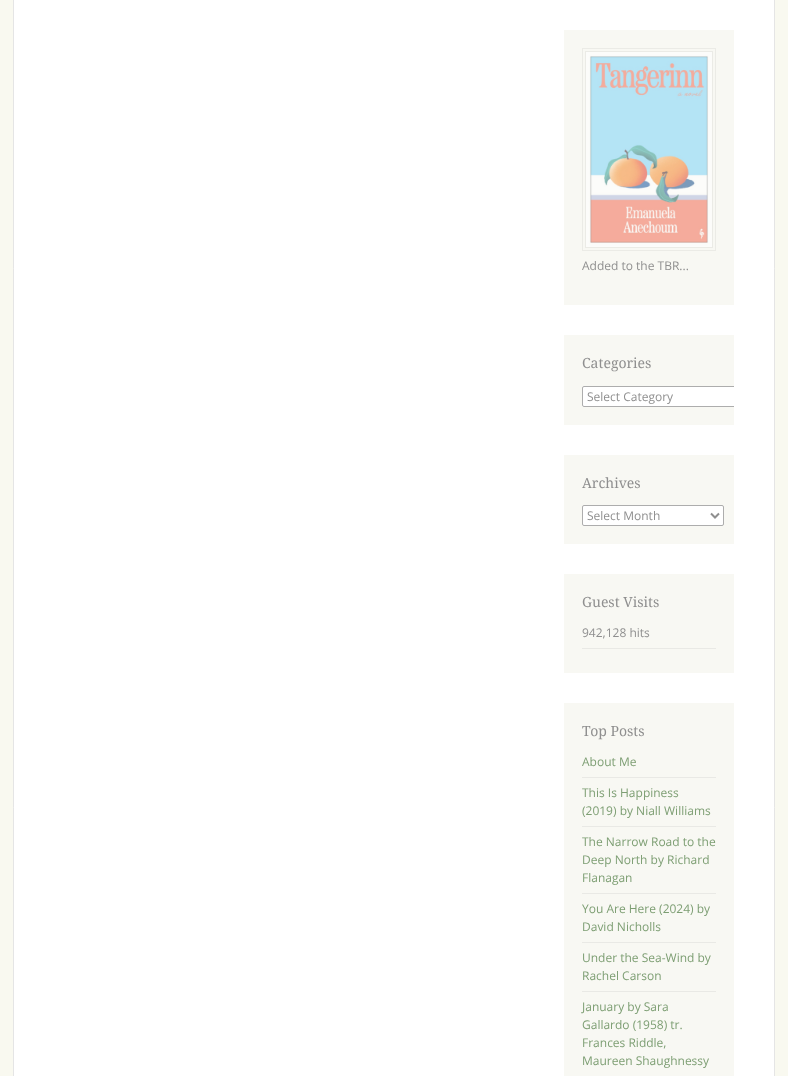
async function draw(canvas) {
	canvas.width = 788;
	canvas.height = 1076;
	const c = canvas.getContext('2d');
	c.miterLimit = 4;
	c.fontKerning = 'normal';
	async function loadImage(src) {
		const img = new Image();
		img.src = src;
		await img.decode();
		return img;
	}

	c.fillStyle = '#f9f9f0';
	c.fillRect(0, 0, 788, 1076);
	c.fillStyle = '#fff';
	c.beginPath();
	c.rect(13.5, -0.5, 761, 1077);
	c.fill();
	c.strokeStyle = '#e5e5e5';
	c.stroke();
	c.fillStyle = '#f8f8f3';
	c.fillRect(564, 30, 170, 275);
	c.strokeStyle = '#ebebe6';
	c.strokeRect(582.5, 48.5, 133, 202);
	c.strokeRect(585.5, 51.5, 127, 196);
	c.drawImage(await loadImage('img1.png'), 586, 52, 126, 195);
	c.font = '12px Open Sans';
	c.fillStyle = '#8f8f8f';
	c.fillText('Added to the TBR...', 582, 270);
	c.fillStyle = '#f8f8f3';
	c.fillRect(564, 335, 170, 90);
	c.font = '14px Droid Serif';
	c.fillStyle = '#8f8f8f';
	c.fillText('Categories', 582, 368);
	c.fillStyle = '#fff';
	c.beginPath();
	c.roundRect(582, 386, 152, 21, [2, 0, 0, 2]);
	c.fill();
	c.save();
	c.beginPath();
	c.rect(564, 0, 170, 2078);
	c.clip();
	c.beginPath();
	c.roundRect(582.5, 386.5, 192, 20, 1.5);
	c.strokeStyle = '#adadad';
	c.stroke();
	c.restore();
	c.font = '12px Open Sans';
	c.fillStyle = '#8f8f8f';
	c.fillText('Select Category', 587, 401);
	c.fillStyle = '#f8f8f3';
	c.fillRect(564, 455, 170, 89);
	c.font = '14px Droid Serif';
	c.fillStyle = '#8f8f8f';
	c.fillText('Archives', 582, 488);
	c.fillStyle = '#fff';
	c.beginPath();
	c.roundRect(582.5, 505.5, 141, 20, 1.5);
	c.fill();
	c.strokeStyle = '#adadad';
	c.stroke();
	c.beginPath();
	c.moveTo(711, 513.5);
	c.lineTo(715, 517.5);
	c.lineTo(719, 513.5);
	c.strokeStyle = '#8f8f8f';
	c.lineWidth = 2;
	c.stroke();
	c.font = '12px Open Sans';
	c.fillStyle = '#8f8f8f';
	c.fillText('Select Month', 587, 520);
	c.fillStyle = '#f8f8f3';
	c.fillRect(564, 574, 170, 99);
	c.font = '14px Droid Serif';
	c.fillStyle = '#8f8f8f';
	c.fillText('Guest Visits', 582, 607);
	c.fillStyle = '#e9e9e5';
	c.fillRect(582, 648, 134, 1);
	c.font = '12px Open Sans';
	c.fillStyle = '#8f8f8f';
	c.fillText('942,128 hits', 582, 637);
	c.fillStyle = '#f8f8f3';
	c.fillRect(564, 703, 170, 373);
	c.font = '14px Droid Serif';
	c.fillStyle = '#8f8f8f';
	c.fillText('Top Posts', 582, 736);
	c.fillStyle = '#e9e9e5';
	c.fillRect(582, 777, 134, 1);
	c.font = '12px Open Sans';
	c.fillStyle = '#7d9e73';
	c.fillText('About Me', 582, 766);
	c.fillStyle = '#e9e9e5';
	c.fillRect(582, 826, 134, 1);
	c.fillStyle = '#7d9e73';
	c.fillText('This Is Happiness', 582, 797);
	c.fillText('(2019) by Niall Williams', 582, 815);
	c.fillStyle = '#e9e9e5';
	c.fillRect(582, 893, 134, 1);
	c.fillStyle = '#7d9e73';
	for (const [text, x, y] of [
		['The Narrow Road to the', 582, 846],
		['Deep North by Richard', 582, 864],
		['Flanagan', 582, 882],
	]) {
		c.fillText(text, x, y);
	}
	c.fillStyle = '#e9e9e5';
	c.fillRect(582, 942, 134, 1);
	c.fillStyle = '#7d9e73';
	c.fillText('You Are Here (2024) by', 582, 913);
	c.fillText('David Nicholls', 582, 931);
	c.fillStyle = '#e9e9e5';
	c.fillRect(582, 991, 134, 1);
	c.fillStyle = '#7d9e73';
	for (const [text, x, y] of [
		['Under the Sea-Wind by', 582, 962],
		['Rachel Carson', 582, 980],
		['January by Sara', 582, 1011],
		['Gallardo (1958) tr.', 582, 1029],
		['Frances Riddle,', 582, 1047],
		['Maureen Shaughnessy', 582, 1065],
	]) {
		c.fillText(text, x, y);
	}
}

draw(document.querySelector('canvas'));
